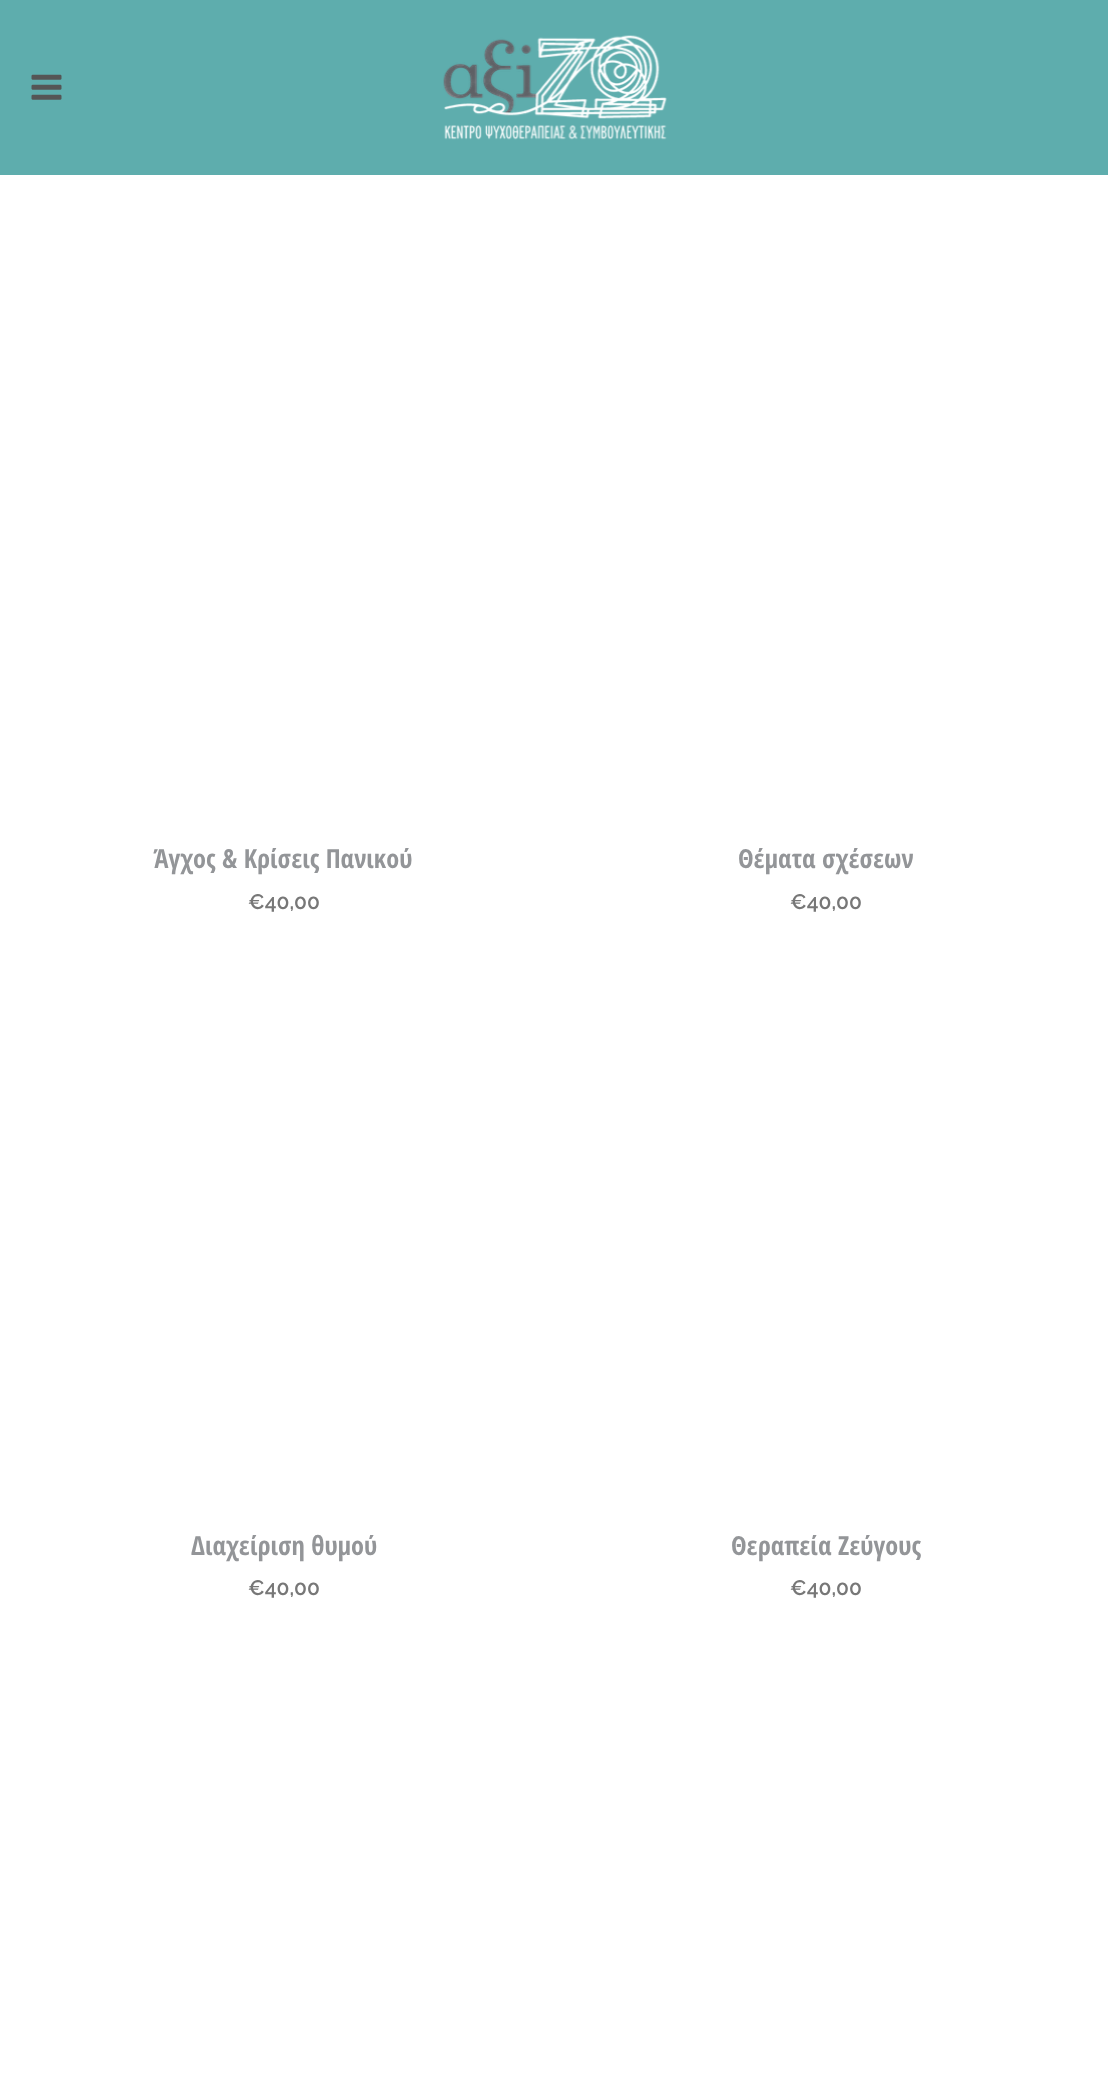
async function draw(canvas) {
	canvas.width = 1108;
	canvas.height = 2095;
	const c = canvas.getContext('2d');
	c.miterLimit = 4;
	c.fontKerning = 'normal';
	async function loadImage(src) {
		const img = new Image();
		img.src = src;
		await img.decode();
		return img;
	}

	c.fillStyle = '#fff';
	c.fillRect(0, 0, 1108, 2095);
	c.fillStyle = '#5eadad';
	c.fillRect(0, 0, 1108, 175);
	c.drawImage(await loadImage('img1.png'), 31, 74, 31, 26);
	c.drawImage(await loadImage('img2.png'), 443, 35, 224, 105);
	c.font = 'bold 26.25px Open Sans Condensed';
	c.fillStyle = '#939598';
	c.fillText('Άγχος & Κρίσεις Πανικού', 154, 868);
	c.font = '600 21px Raleway';
	c.fillStyle = '#777';
	c.fillText('€40,00', 248, 909);
	c.font = 'bold 26.25px Open Sans Condensed';
	c.fillStyle = '#939598';
	c.fillText('Θέματα σχέσεων', 738, 868);
	c.font = '600 21px Raleway';
	c.fillStyle = '#777';
	c.fillText('€40,00', 790, 909);
	c.font = 'bold 26.25px Open Sans Condensed';
	c.fillStyle = '#939598';
	c.fillText('Διαχείριση θυμού', 191, 1555);
	c.font = '600 21px Raleway';
	c.fillStyle = '#777';
	c.fillText('€40,00', 248, 1595);
	c.font = 'bold 26.25px Open Sans Condensed';
	c.fillStyle = '#939598';
	c.fillText('Θεραπεία Ζεύγους', 731, 1555);
	c.font = '600 21px Raleway';
	c.fillStyle = '#777';
	c.fillText('€40,00', 790, 1595);
}

draw(document.querySelector('canvas'));
